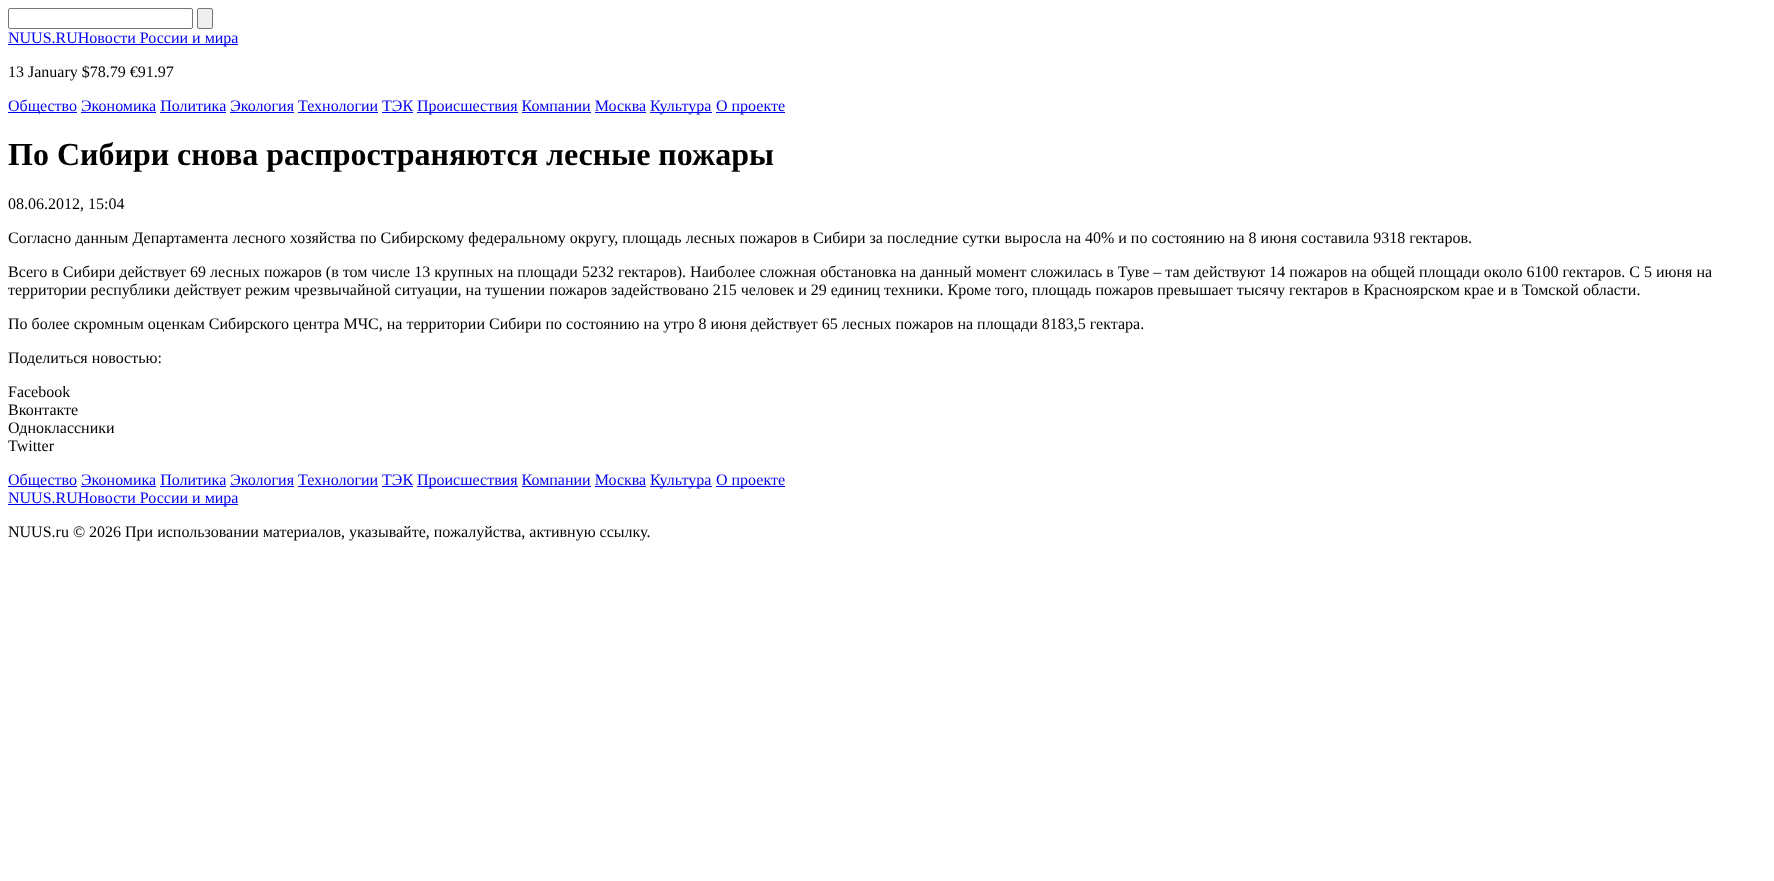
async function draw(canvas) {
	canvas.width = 1774;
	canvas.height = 881;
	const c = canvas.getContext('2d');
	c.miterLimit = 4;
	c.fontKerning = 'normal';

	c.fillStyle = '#fff';
	c.fillRect(0, 0, 1774, 881);
	c.beginPath();
	c.roundRect(8.5, 8.5, 184, 20, 1.5);
	c.strokeStyle = '#767676';
	c.stroke();
	c.fillStyle = '#efefef';
	c.beginPath();
	c.roundRect(197.5, 8.5, 15, 20, 1.5);
	c.fill();
	c.stroke();
	c.fillStyle = '#00e';
	c.fillRect(8, 44, 230, 1);
	c.font = '16px Liberation Serif';
	c.fillText('NUUS.RUНовости России и мира', 8, 43);
	c.fillStyle = '#000';
	c.fillText('13 January $78.79 €91.97', 8, 77);
	c.fillStyle = '#00e';
	c.fillRect(8, 112, 69, 1);
	c.fillText('Общество Экономика Политика Экология Технологии ТЭК', 8, 111);
	c.fillRect(417, 112, 101, 1);
	c.fillText('Происшествия Компании Москва', 417, 111);
	c.fillRect(650, 112, 62, 1);
	c.fillText('Культура', 650, 111);
	c.fillRect(716, 112, 69, 1);
	c.fillText('О проекте', 716, 111);
	for (const [x, y, w, h, color] of [
		[81, 112, 75, 1, '#00e'],
		[160, 112, 66, 1, '#00e'],
		[230, 112, 64, 1, '#00e'],
		[298, 112, 80, 1, '#00e'],
		[382, 112, 31, 1, '#00e'],
		[522, 112, 69, 1, '#00e'],
		[595, 112, 51, 1, '#00e'],
	]) {
		c.fillStyle = color;
		c.fillRect(x, y, w, h);
	}
	c.font = 'bold 32px Liberation Serif';
	c.fillStyle = '#000';
	c.fillText('По Сибири снова распространяются лесные пожары', 8, 165);
	c.font = '16px Liberation Serif';
	for (const [text, x, y] of [
		['08.06.2012, 15:04', 8, 209],
		['Согласно данным Департамента лесного хозяйства по Сибирскому федеральному округу, площадь лесных пожаров в Сибири за последние сутки выросла на 40% и по состоянию на 8 июня составила 9318 гектаров.', 8, 243],
		['Всего в Сибири действует 69 лесных пожаров (в том числе 13 крупных на площади 5232 гектаров). Наиболее сложная обстановка на данный момент сложилась в Туве – там действуют 14 пожаров на общей площади около 6100 гектаров. С 5 июня на', 8, 277],
		['территории республики действует режим чрезвычайной ситуации, на тушении пожаров задействовано 215 человек и 29 единиц техники. Кроме того, площадь пожаров превышает тысячу гектаров в Красноярском крае и в Томской области.', 8, 295],
		['По более скромным оценкам Сибирского центра МЧС, на территории Сибири по состоянию на утро 8 июня действует 65 лесных пожаров на площади 8183,5 гектара.', 8, 329],
		['Поделиться новостью:', 8, 363],
		['Facebook', 8, 397],
		['Вконтакте', 8, 415],
		['Одноклассники', 8, 433],
		['Twitter', 8, 451],
	]) {
		c.fillText(text, x, y);
	}
	c.fillStyle = '#00e';
	c.fillRect(8, 486, 69, 1);
	c.fillText('Общество Экономика Политика Экология Технологии ТЭК', 8, 485);
	c.fillRect(417, 486, 101, 1);
	c.fillText('Происшествия Компании Москва', 417, 485);
	c.fillRect(650, 486, 62, 1);
	c.fillText('Культура', 650, 485);
	c.fillRect(716, 486, 69, 1);
	c.fillText('О проекте', 716, 485);
	for (const [x, y, w, h, color] of [
		[81, 486, 75, 1, '#00e'],
		[160, 486, 66, 1, '#00e'],
		[230, 486, 64, 1, '#00e'],
		[298, 486, 80, 1, '#00e'],
		[382, 486, 31, 1, '#00e'],
		[522, 486, 69, 1, '#00e'],
		[595, 486, 51, 1, '#00e'],
		[8, 504, 230, 1, '#00e'],
	]) {
		c.fillStyle = color;
		c.fillRect(x, y, w, h);
	}
	c.fillText('NUUS.RUНовости России и мира', 8, 503);
	c.fillStyle = '#000';
	c.fillText('NUUS.ru © 2026 При использовании материалов, указывайте, пожалуйства, активную ссылку.', 8, 537);
}

draw(document.querySelector('canvas'));
